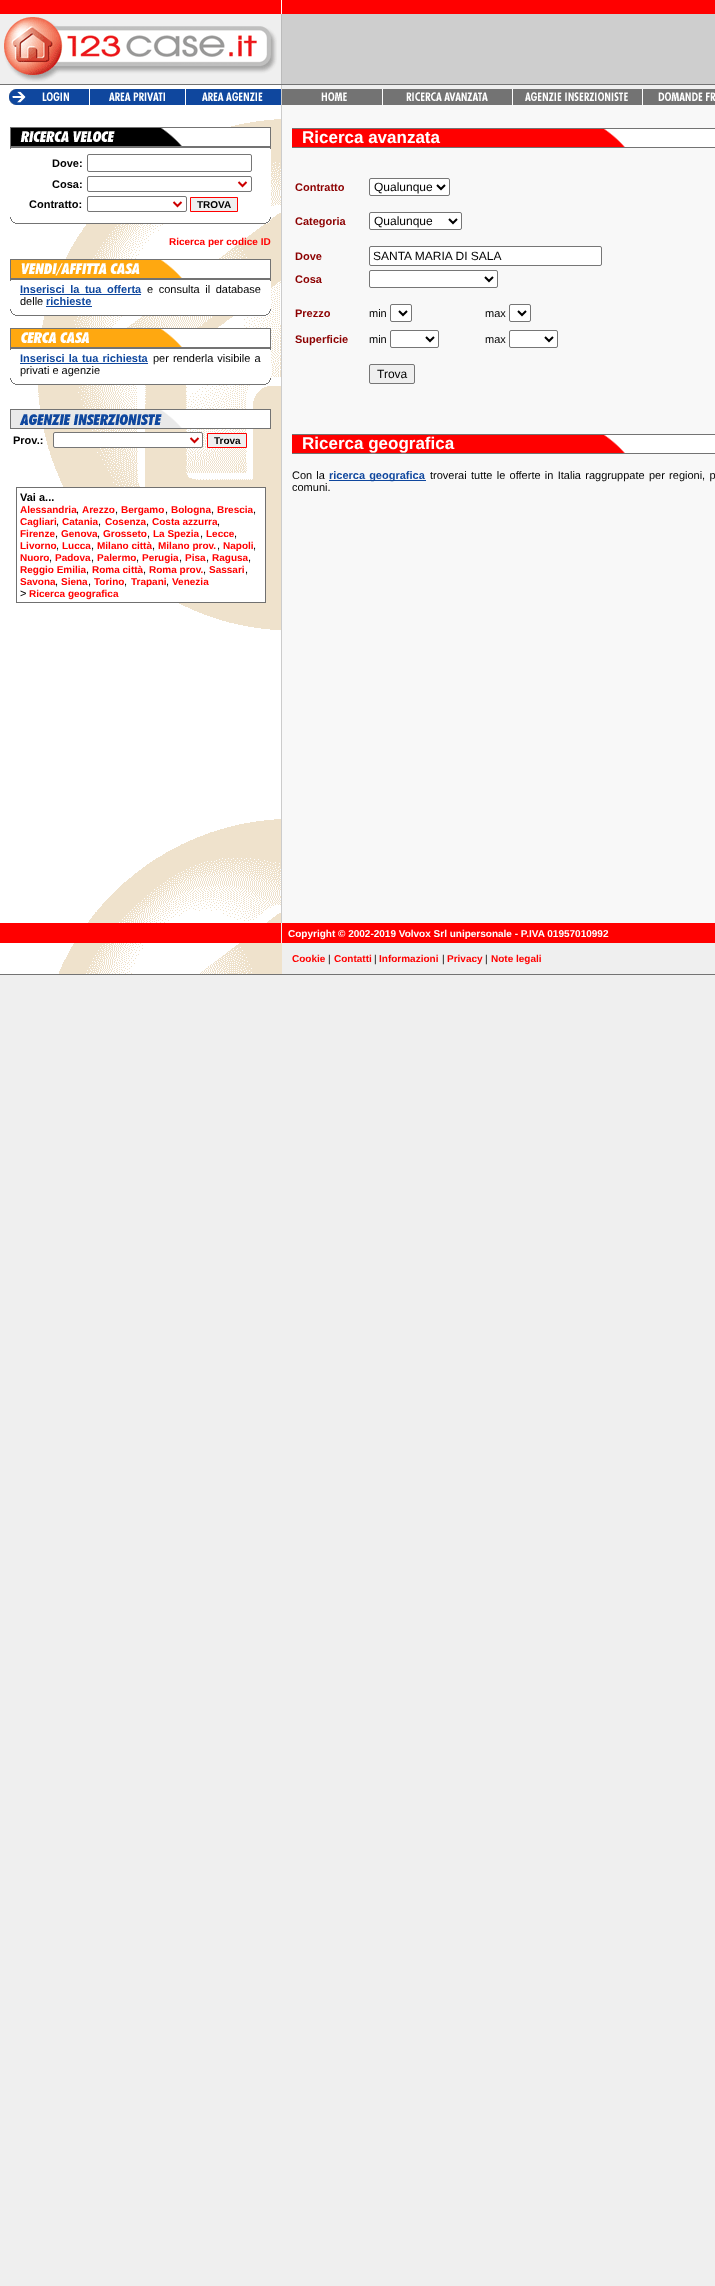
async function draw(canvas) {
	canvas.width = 715;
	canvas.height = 2286;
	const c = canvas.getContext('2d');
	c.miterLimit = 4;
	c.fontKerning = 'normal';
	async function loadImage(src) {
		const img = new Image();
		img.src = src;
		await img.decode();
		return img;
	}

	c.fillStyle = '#efefef';
	c.fillRect(0, 0, 715, 2286);
	c.drawImage(await loadImage('img1.png'), 0, 0, 282, 974);
	for (const [x, y, w, h, color] of [
		[0, 0, 281, 14, '#f00'],
		[282, 0, 433, 14, '#f00'],
		[0, 14, 281, 70, '#efefef'],
	]) {
		c.fillStyle = color;
		c.fillRect(x, y, w, h);
	}
	c.drawImage(await loadImage('img2.png'), 4, 17, 273, 65);
	for (const [x, y, w, h, color] of [
		[281, 14, 1, 70, '#bbb'],
		[282, 14, 433, 70, '#cecece'],
		[0, 84, 715, 1, '#737373'],
	]) {
		c.fillStyle = color;
		c.fillRect(x, y, w, h);
	}
	c.drawImage(await loadImage('img3.png'), 9, 89, 80, 16);
	c.drawImage(await loadImage('img4.png'), 90, 89, 95, 16);
	c.drawImage(await loadImage('img5.png'), 186, 89, 95, 16);
	c.fillStyle = '#ccc';
	c.fillRect(281, 85, 1, 838);
	c.fillStyle = '#737373';
	c.fillRect(282, 89, 360, 16);
	c.drawImage(await loadImage('img6.png'), 321, 92, 26, 9);
	c.drawImage(await loadImage('img7.png'), 382, 89, 106, 16);
	c.drawImage(await loadImage('img8.png'), 512, 89, 116, 16);
	c.drawImage(await loadImage('img9.png'), 642, 89, 73, 16);
	c.drawImage(await loadImage('img10.png'), 10, 127, 261, 20);
	c.drawImage(await loadImage('img11.png'), 10, 147, 261, 2);
	c.fillStyle = '#fff';
	c.fillRect(92, 149, 179, 68);
	c.font = 'bold 11px Liberation Sans';
	c.fillStyle = '#000';
	c.fillText('Dove:', 52, 167);
	c.beginPath();
	c.roundRect(87.5, 154.5, 164, 17, 1.5);
	c.strokeStyle = '#767676';
	c.stroke();
	c.fillText('Cosa:', 52, 188);
	c.beginPath();
	c.roundRect(87.5, 176.5, 164, 15, 1.5);
	c.stroke();
	c.beginPath();
	c.moveTo(238.5, 182);
	c.lineTo(242.5, 186);
	c.lineTo(246.5, 182);
	c.strokeStyle = '#c00';
	c.lineWidth = 2;
	c.stroke();
	c.fillText('Contratto:', 29, 208);
	c.beginPath();
	c.roundRect(87.5, 196.5, 99, 15, 1.5);
	c.strokeStyle = '#767676';
	c.lineWidth = 1;
	c.stroke();
	c.beginPath();
	c.moveTo(173.5, 202);
	c.lineTo(177.5, 206);
	c.lineTo(181.5, 202);
	c.strokeStyle = '#c00';
	c.lineWidth = 2;
	c.stroke();
	c.fillStyle = '#efefef';
	c.beginPath();
	c.rect(190.5, 197.5, 47, 14);
	c.fill();
	c.strokeStyle = '#f00';
	c.lineWidth = 1;
	c.stroke();
	c.font = 'bold 10px Liberation Sans';
	c.fillStyle = '#000';
	c.fillText('TROVA', 197, 208);
	c.drawImage(await loadImage('img12.png'), 10, 217, 261, 7);
	c.fillStyle = '#f00';
	c.fillText('Ricerca per codice ID', 169, 245);
	c.drawImage(await loadImage('img13.png'), 10, 259, 261, 20);
	c.drawImage(await loadImage('img11.png'), 10, 279, 261, 2);
	c.fillStyle = '#fff';
	c.fillRect(46, 281, 225, 28);
	c.wordSpacing = '2.5px';
	c.font = 'bold 11px Liberation Sans';
	c.fillStyle = '#0f479e';
	c.fillText('Inserisci la tua offerta', 20, 293);
	c.fillRect(20, 294, 121, 1);
	c.font = '11px Liberation Sans';
	c.fillStyle = '#000';
	c.fillText('e consulta il database', 147, 293);
	c.wordSpacing = '0px';
	c.fillText('delle', 20, 305);
	c.font = 'bold 11px Liberation Sans';
	c.fillStyle = '#0f479e';
	c.fillText('richieste', 46, 305);
	c.fillRect(46, 306, 46, 1);
	c.drawImage(await loadImage('img14.png'), 10, 309, 261, 7);
	c.drawImage(await loadImage('img15.png'), 10, 328, 261, 20);
	c.drawImage(await loadImage('img11.png'), 10, 348, 261, 2);
	c.fillStyle = '#fff';
	c.fillRect(38, 350, 233, 28);
	c.wordSpacing = '1px';
	c.fillStyle = '#0f479e';
	c.fillText('Inserisci la tua richiesta', 20, 362);
	c.fillRect(20, 363, 128, 1);
	c.font = '11px Liberation Sans';
	c.fillStyle = '#000';
	c.fillText('per renderla visibile a', 153, 362);
	c.wordSpacing = '0px';
	c.fillText('privati e agenzie', 20, 374);
	c.drawImage(await loadImage('img16.png'), 10, 378, 261, 7);
	c.drawImage(await loadImage('img17.png'), 10, 409, 261, 20);
	c.font = 'bold 11px Liberation Sans';
	c.fillText('Prov.:', 13, 444);
	c.fillStyle = '#fff';
	c.beginPath();
	c.roundRect(53.5, 432.5, 149, 15, 1.5);
	c.fill();
	c.strokeStyle = '#767676';
	c.stroke();
	c.beginPath();
	c.moveTo(190.5, 438);
	c.lineTo(194.5, 442);
	c.lineTo(198.5, 438);
	c.strokeStyle = '#c00';
	c.lineWidth = 2;
	c.stroke();
	c.fillStyle = '#efefef';
	c.beginPath();
	c.rect(207.5, 433.5, 39, 14);
	c.fill();
	c.strokeStyle = '#f00';
	c.lineWidth = 1;
	c.stroke();
	c.font = 'bold 10px Liberation Sans';
	c.fillStyle = '#000';
	c.fillText('Trova', 214, 444);
	c.fillStyle = '#707070';
	c.fillRect(16, 487, 250, 116);
	c.fillStyle = '#fff';
	c.fillRect(17, 488, 248, 114);
	c.font = 'bold 11px Liberation Sans';
	c.fillStyle = '#000';
	c.fillText('Vai a...', 20, 501);
	c.font = 'bold 10px Liberation Sans';
	c.fillStyle = '#f00';
	c.fillText('Alessandria', 20, 513);
	c.font = '11px Liberation Sans';
	c.fillStyle = '#000';
	c.fillText(',', 76, 513);
	c.font = 'bold 10px Liberation Sans';
	c.fillStyle = '#f00';
	c.fillText('Arezzo', 82, 513);
	c.font = '11px Liberation Sans';
	c.fillStyle = '#000';
	c.fillText(',', 115, 513);
	c.font = 'bold 10px Liberation Sans';
	c.fillStyle = '#f00';
	c.fillText('Bergamo', 121, 513);
	c.font = '11px Liberation Sans';
	c.fillStyle = '#000';
	c.fillText(',', 165, 513);
	c.font = 'bold 10px Liberation Sans';
	c.fillStyle = '#f00';
	c.fillText('Bologna', 171, 513);
	c.font = '11px Liberation Sans';
	c.fillStyle = '#000';
	c.fillText(',', 211, 513);
	c.font = 'bold 10px Liberation Sans';
	c.fillStyle = '#f00';
	c.fillText('Brescia', 217, 513);
	c.font = '11px Liberation Sans';
	c.fillStyle = '#000';
	c.fillText(',', 253, 513);
	c.font = 'bold 10px Liberation Sans';
	c.fillStyle = '#f00';
	c.fillText('Cagliari', 20, 525);
	c.font = '11px Liberation Sans';
	c.fillStyle = '#000';
	c.fillText(',', 56, 525);
	c.font = 'bold 10px Liberation Sans';
	c.fillStyle = '#f00';
	c.fillText('Catania', 62, 525);
	c.font = '11px Liberation Sans';
	c.fillStyle = '#000';
	c.fillText(',', 98, 525);
	c.font = 'bold 10px Liberation Sans';
	c.fillStyle = '#f00';
	c.fillText('Cosenza', 105, 525);
	c.font = '11px Liberation Sans';
	c.fillStyle = '#000';
	c.fillText(',', 146, 525);
	c.font = 'bold 10px Liberation Sans';
	c.fillStyle = '#f00';
	c.fillText('Costa azzurra', 152, 525);
	c.font = '11px Liberation Sans';
	c.fillStyle = '#000';
	c.fillText(',', 217, 525);
	c.font = 'bold 10px Liberation Sans';
	c.fillStyle = '#f00';
	c.fillText('Firenze', 20, 537);
	c.font = '11px Liberation Sans';
	c.fillStyle = '#000';
	c.fillText(',', 55, 537);
	c.font = 'bold 10px Liberation Sans';
	c.fillStyle = '#f00';
	c.fillText('Genova', 61, 537);
	c.font = '11px Liberation Sans';
	c.fillStyle = '#000';
	c.fillText(',', 97, 537);
	c.font = 'bold 10px Liberation Sans';
	c.fillStyle = '#f00';
	c.fillText('Grosseto', 103, 537);
	c.font = '11px Liberation Sans';
	c.fillStyle = '#000';
	c.fillText(',', 147, 537);
	c.font = 'bold 10px Liberation Sans';
	c.fillStyle = '#f00';
	c.fillText('La Spezia', 153, 537);
	c.font = '11px Liberation Sans';
	c.fillStyle = '#000';
	c.fillText(',', 200, 537);
	c.font = 'bold 10px Liberation Sans';
	c.fillStyle = '#f00';
	c.fillText('Lecce', 206, 537);
	c.font = '11px Liberation Sans';
	c.fillStyle = '#000';
	c.fillText(',', 234, 537);
	c.font = 'bold 10px Liberation Sans';
	c.fillStyle = '#f00';
	c.fillText('Livorno', 20, 549);
	c.font = '11px Liberation Sans';
	c.fillStyle = '#000';
	c.fillText(',', 56, 549);
	c.font = 'bold 10px Liberation Sans';
	c.fillStyle = '#f00';
	c.fillText('Lucca', 62, 549);
	c.font = '11px Liberation Sans';
	c.fillStyle = '#000';
	c.fillText(',', 91, 549);
	c.font = 'bold 10px Liberation Sans';
	c.fillStyle = '#f00';
	c.fillText('Milano città', 97, 549);
	c.font = '11px Liberation Sans';
	c.fillStyle = '#000';
	c.fillText(',', 152, 549);
	c.font = 'bold 10px Liberation Sans';
	c.fillStyle = '#f00';
	c.fillText('Milano prov.', 158, 549);
	c.font = '11px Liberation Sans';
	c.fillStyle = '#000';
	c.fillText(',', 217, 549);
	c.font = 'bold 10px Liberation Sans';
	c.fillStyle = '#f00';
	c.fillText('Napoli', 223, 549);
	c.font = '11px Liberation Sans';
	c.fillStyle = '#000';
	c.fillText(',', 253, 549);
	c.font = 'bold 10px Liberation Sans';
	c.fillStyle = '#f00';
	c.fillText('Nuoro', 20, 561);
	c.font = '11px Liberation Sans';
	c.fillStyle = '#000';
	c.fillText(',', 49, 561);
	c.font = 'bold 10px Liberation Sans';
	c.fillStyle = '#f00';
	c.fillText('Padova', 55, 561);
	c.font = '11px Liberation Sans';
	c.fillStyle = '#000';
	c.fillText(',', 91, 561);
	c.font = 'bold 10px Liberation Sans';
	c.fillStyle = '#f00';
	c.fillText('Palermo', 97, 561);
	c.font = '11px Liberation Sans';
	c.fillStyle = '#000';
	c.fillText(',', 136, 561);
	c.font = 'bold 10px Liberation Sans';
	c.fillStyle = '#f00';
	c.fillText('Perugia', 142, 561);
	c.font = '11px Liberation Sans';
	c.fillStyle = '#000';
	c.fillText(',', 179, 561);
	c.font = 'bold 10px Liberation Sans';
	c.fillStyle = '#f00';
	c.fillText('Pisa', 185, 561);
	c.font = '11px Liberation Sans';
	c.fillStyle = '#000';
	c.fillText(',', 206, 561);
	c.font = 'bold 10px Liberation Sans';
	c.fillStyle = '#f00';
	c.fillText('Ragusa', 212, 561);
	c.font = '11px Liberation Sans';
	c.fillStyle = '#000';
	c.fillText(',', 248, 561);
	c.font = 'bold 10px Liberation Sans';
	c.fillStyle = '#f00';
	c.fillText('Reggio Emilia', 20, 573);
	c.font = '11px Liberation Sans';
	c.fillStyle = '#000';
	c.fillText(',', 86, 573);
	c.font = 'bold 10px Liberation Sans';
	c.fillStyle = '#f00';
	c.fillText('Roma città', 92, 573);
	c.font = '11px Liberation Sans';
	c.fillStyle = '#000';
	c.fillText(',', 143, 573);
	c.font = 'bold 10px Liberation Sans';
	c.fillStyle = '#f00';
	c.fillText('Roma prov.', 149, 573);
	c.font = '11px Liberation Sans';
	c.fillStyle = '#000';
	c.fillText(',', 203, 573);
	c.font = 'bold 10px Liberation Sans';
	c.fillStyle = '#f00';
	c.fillText('Sassari', 209, 573);
	c.font = '11px Liberation Sans';
	c.fillStyle = '#000';
	c.fillText(',', 245, 573);
	c.font = 'bold 10px Liberation Sans';
	c.fillStyle = '#f00';
	c.fillText('Savona', 20, 585);
	c.font = '11px Liberation Sans';
	c.fillStyle = '#000';
	c.fillText(',', 55, 585);
	c.font = 'bold 10px Liberation Sans';
	c.fillStyle = '#f00';
	c.fillText('Siena', 61, 585);
	c.font = '11px Liberation Sans';
	c.fillStyle = '#000';
	c.fillText(',', 88, 585);
	c.font = 'bold 10px Liberation Sans';
	c.fillStyle = '#f00';
	c.fillText('Torino', 94, 585);
	c.font = '11px Liberation Sans';
	c.fillStyle = '#000';
	c.fillText(',', 124, 585);
	c.font = 'bold 10px Liberation Sans';
	c.fillStyle = '#f00';
	c.fillText('Trapani', 131, 585);
	c.font = '11px Liberation Sans';
	c.fillStyle = '#000';
	c.fillText(',', 166, 585);
	c.font = 'bold 10px Liberation Sans';
	c.fillStyle = '#f00';
	c.fillText('Venezia', 172, 585);
	c.font = '11px Liberation Sans';
	c.fillStyle = '#000';
	c.fillText('>', 20, 597);
	c.font = 'bold 10px Liberation Sans';
	c.fillStyle = '#f00';
	c.fillText('Ricerca geografica', 29, 597);
	c.fillStyle = '#f8f8f8';
	c.fillRect(282, 105, 433, 818);
	c.drawImage(await loadImage('img18.png'), 292, 128, 423, 20);
	c.font = 'bold 17px Liberation Sans';
	c.fillStyle = '#fff';
	c.fillText('Ricerca avanzata', 302, 143);
	c.font = 'bold 11px Liberation Sans';
	c.fillStyle = '#8c0000';
	c.fillText('Contratto', 295, 191);
	c.fillStyle = '#fff';
	c.beginPath();
	c.roundRect(369.5, 178.5, 80, 17, 1.5);
	c.fill();
	c.strokeStyle = '#767676';
	c.stroke();
	c.beginPath();
	c.moveTo(437, 185);
	c.lineTo(441, 189);
	c.lineTo(445, 185);
	c.strokeStyle = '#000';
	c.lineWidth = 2;
	c.stroke();
	c.font = '12px Liberation Sans';
	c.fillStyle = '#000';
	c.fillText('Qualunque', 374, 191);
	c.font = 'bold 11px Liberation Sans';
	c.fillStyle = '#8c0000';
	c.fillText('Categoria', 295, 225);
	c.fillStyle = '#fff';
	c.beginPath();
	c.roundRect(369.5, 212.5, 92, 17, 1.5);
	c.fill();
	c.strokeStyle = '#767676';
	c.lineWidth = 1;
	c.stroke();
	c.beginPath();
	c.moveTo(449, 219);
	c.lineTo(453, 223);
	c.lineTo(457, 219);
	c.strokeStyle = '#000';
	c.lineWidth = 2;
	c.stroke();
	c.font = '12px Liberation Sans';
	c.fillStyle = '#000';
	c.fillText('Qualunque', 374, 225);
	c.font = 'bold 11px Liberation Sans';
	c.fillStyle = '#8c0000';
	c.fillText('Dove', 295, 260);
	c.fillStyle = '#fff';
	c.beginPath();
	c.roundRect(369.5, 246.5, 232, 19, 1.5);
	c.fill();
	c.strokeStyle = '#767676';
	c.lineWidth = 1;
	c.stroke();
	c.font = '12px Liberation Sans';
	c.fillStyle = '#000';
	c.fillText('SANTA MARIA DI SALA', 373, 260);
	c.font = 'bold 11px Liberation Sans';
	c.fillStyle = '#8c0000';
	c.fillText('Cosa', 295, 283);
	c.fillStyle = '#fff';
	c.beginPath();
	c.roundRect(369.5, 270.5, 128, 17, 1.5);
	c.fill();
	c.stroke();
	c.beginPath();
	c.moveTo(485, 277);
	c.lineTo(489, 281);
	c.lineTo(493, 277);
	c.strokeStyle = '#000';
	c.lineWidth = 2;
	c.stroke();
	c.fillStyle = '#8c0000';
	c.fillText('Prezzo', 295, 317);
	c.font = '11px Liberation Sans';
	c.fillStyle = '#000';
	c.fillText('min', 369, 317);
	c.fillStyle = '#fff';
	c.beginPath();
	c.roundRect(390.5, 304.5, 21, 17, 1.5);
	c.fill();
	c.strokeStyle = '#767676';
	c.lineWidth = 1;
	c.stroke();
	c.beginPath();
	c.moveTo(399, 311);
	c.lineTo(403, 315);
	c.lineTo(407, 311);
	c.strokeStyle = '#000';
	c.lineWidth = 2;
	c.stroke();
	c.fillStyle = '#000';
	c.fillText('max', 485, 317);
	c.fillStyle = '#fff';
	c.beginPath();
	c.roundRect(509.5, 304.5, 21, 17, 1.5);
	c.fill();
	c.strokeStyle = '#767676';
	c.lineWidth = 1;
	c.stroke();
	c.beginPath();
	c.moveTo(518, 311);
	c.lineTo(522, 315);
	c.lineTo(526, 311);
	c.strokeStyle = '#000';
	c.lineWidth = 2;
	c.stroke();
	c.font = 'bold 11px Liberation Sans';
	c.fillStyle = '#8c0000';
	c.fillText('Superficie', 295, 343);
	c.font = '11px Liberation Sans';
	c.fillStyle = '#000';
	c.fillText('min', 369, 343);
	c.fillStyle = '#fff';
	c.beginPath();
	c.roundRect(390.5, 330.5, 48, 17, 1.5);
	c.fill();
	c.strokeStyle = '#767676';
	c.lineWidth = 1;
	c.stroke();
	c.beginPath();
	c.moveTo(426, 337);
	c.lineTo(430, 341);
	c.lineTo(434, 337);
	c.strokeStyle = '#000';
	c.lineWidth = 2;
	c.stroke();
	c.fillStyle = '#000';
	c.fillText('max', 485, 343);
	c.fillStyle = '#fff';
	c.beginPath();
	c.roundRect(509.5, 330.5, 48, 17, 1.5);
	c.fill();
	c.strokeStyle = '#767676';
	c.lineWidth = 1;
	c.stroke();
	c.beginPath();
	c.moveTo(545, 337);
	c.lineTo(549, 341);
	c.lineTo(553, 337);
	c.strokeStyle = '#000';
	c.lineWidth = 2;
	c.stroke();
	c.fillStyle = '#efefef';
	c.beginPath();
	c.roundRect(369.5, 364.5, 45, 19, 1.5);
	c.fill();
	c.strokeStyle = '#767676';
	c.lineWidth = 1;
	c.stroke();
	c.font = '12px Liberation Sans';
	c.fillStyle = '#000';
	c.fillText('Trova', 377, 378);
	c.drawImage(await loadImage('img18.png'), 292, 434, 423, 20);
	c.font = 'bold 17px Liberation Sans';
	c.fillStyle = '#fff';
	c.fillText('Ricerca geografica', 302, 449);
	c.wordSpacing = '1px';
	c.font = '11px Liberation Sans';
	c.fillStyle = '#000';
	c.fillText('Con la', 292, 479);
	c.fillStyle = '#0f479e';
	c.fillRect(329, 480, 97, 1);
	c.font = 'bold 11px Liberation Sans';
	c.fillText('ricerca geografica', 329, 479);
	c.wordSpacing = '1.25px';
	c.font = '11px Liberation Sans';
	c.fillStyle = '#000';
	c.fillText('troverai tutte le offerte in Italia raggruppate per regioni, p', 430, 479);
	c.wordSpacing = '0px';
	c.fillText('comuni.', 292, 491);
	for (const [x, y, w, h, color] of [
		[0, 923, 281, 20, '#f00'],
		[281, 923, 1, 20, '#efefef'],
		[282, 923, 433, 20, '#f00'],
	]) {
		c.fillStyle = color;
		c.fillRect(x, y, w, h);
	}
	c.font = 'bold 10px Liberation Sans';
	c.fillStyle = '#fff';
	c.fillText('Copyright © 2002-2019 Volvox Srl unipersonale - P.IVA 01957010992', 288, 937);
	c.fillStyle = '#f00';
	c.fillText('Cookie', 292, 962);
	c.font = '10px Liberation Sans';
	c.fillStyle = '#000';
	c.fillText('|', 328, 962);
	c.font = 'bold 10px Liberation Sans';
	c.fillStyle = '#f00';
	c.fillText('Contatti', 334, 962);
	c.font = '10px Liberation Sans';
	c.fillStyle = '#000';
	c.fillText('|', 374, 962);
	c.font = 'bold 10px Liberation Sans';
	c.fillStyle = '#f00';
	c.fillText('Informazioni', 379, 962);
	c.font = '10px Liberation Sans';
	c.fillStyle = '#000';
	c.fillText('|', 442, 962);
	c.font = 'bold 10px Liberation Sans';
	c.fillStyle = '#f00';
	c.fillText('Privacy', 447, 962);
	c.font = '10px Liberation Sans';
	c.fillStyle = '#000';
	c.fillText('|', 485, 962);
	c.font = 'bold 10px Liberation Sans';
	c.fillStyle = '#f00';
	c.fillText('Note legali', 491, 962);
	c.fillStyle = '#737373';
	c.fillRect(0, 974, 715, 1);
}

draw(document.querySelector('canvas'));
